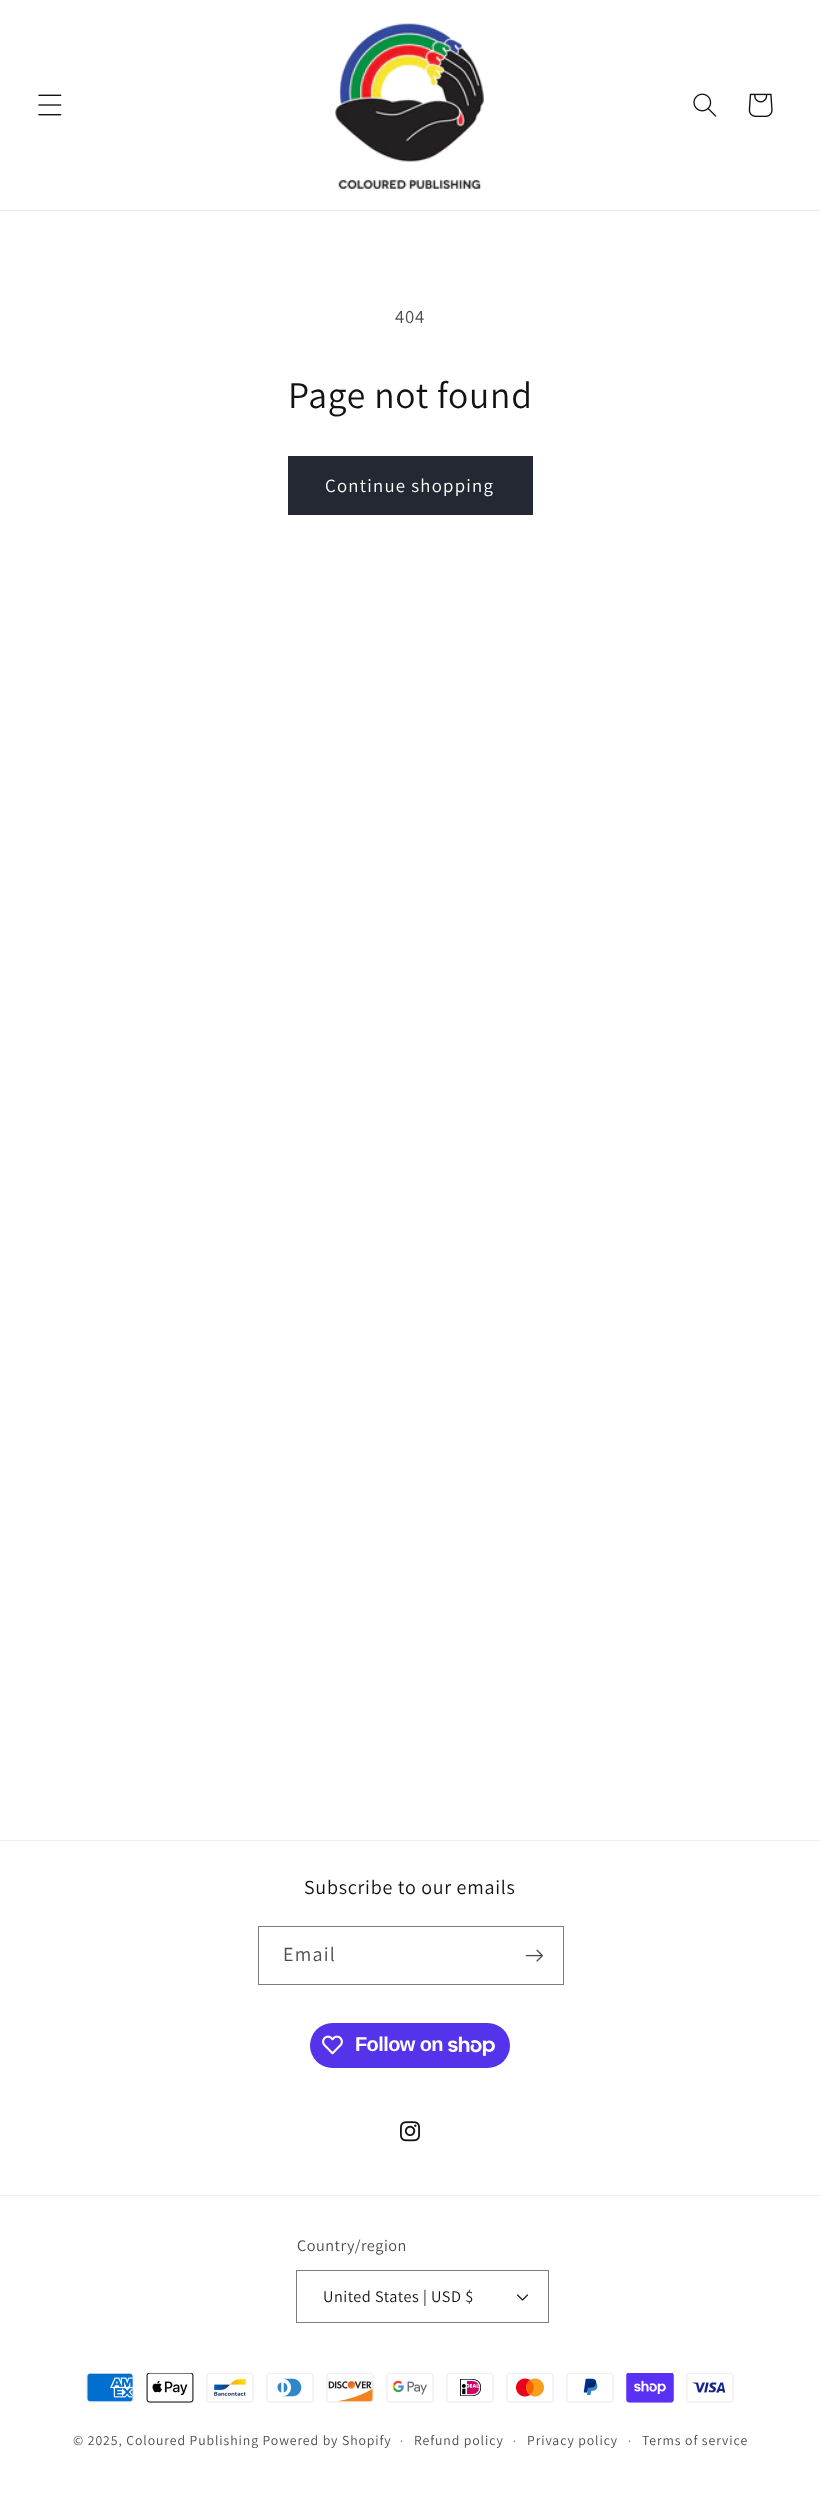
async function draw(canvas) {
	canvas.width = 820;
	canvas.height = 2493;
	const c = canvas.getContext('2d');
	c.miterLimit = 4;
	c.fontKerning = 'normal';
	async function loadImage(src) {
		const img = new Image();
		img.src = src;
		await img.decode();
		return img;
	}

	c.fillStyle = '#fff';
	c.fillRect(0, 0, 820, 2493);
	c.fillStyle = '#ececec';
	c.fillRect(0, 210, 820, 1);
	c.drawImage(await loadImage('img1.png'), 38, 94, 24, 22);
	c.drawImage(await loadImage('img2.png'), 335, 22, 149, 167);
	c.drawImage(await loadImage('img3.png'), 693, 93, 24, 24);
	c.drawImage(await loadImage('img4.png'), 748, 93, 25, 24);
	c.letterSpacing = '0.75px';
	c.font = '18.75px Assistant';
	c.fillStyle = '#4d4d4d';
	c.fillText('404', 395, 323);
	c.font = '37.5px Assistant';
	c.fillStyle = '#121212';
	c.fillText('Page not found', 288, 408);
	c.fillStyle = '#242833';
	c.fillRect(288, 456, 245, 59);
	c.letterSpacing = '1.25px';
	c.font = '18.75px Assistant';
	c.fillStyle = '#fff';
	c.fillText('Continue shopping', 325, 492);
	c.fillStyle = '#ececec';
	c.fillRect(0, 1840, 820, 1);
	c.letterSpacing = '0.75px';
	c.font = '20px Assistant';
	c.fillStyle = '#121212';
	c.fillText('Subscribe to our emails', 304, 1894);
	c.strokeStyle = '#7d7d7d';
	c.strokeRect(258.5, 1926.5, 305, 58);
	c.letterSpacing = '1.25px';
	c.fillStyle = '#4d4d4d';
	c.fillText('Email', 283, 1961);
	c.drawImage(await loadImage('img5.png'), 525, 1949, 18, 13);
	c.fillStyle = '#5433eb';
	c.beginPath();
	c.roundRect(310, 2023, 200, 45, 22.5);
	c.fill();
	c.drawImage(await loadImage('img6.png'), 322, 2035, 21, 20);
	c.letterSpacing = '-0.6px';
	c.font = 'bold 20px Liberation Sans';
	c.fillStyle = '#fff';
	c.fillText('Follow on', 355, 2051);
	c.drawImage(await loadImage('img7.png'), 448, 2036, 47, 20);
	c.drawImage(await loadImage('img8.png'), 400, 2121, 20, 21);
	c.fillStyle = '#ececec';
	c.fillRect(0, 2195, 820, 1);
	c.letterSpacing = '0.5px';
	c.font = '16.25px Assistant';
	c.fillStyle = '#4d4d4d';
	c.fillText('Country/region', 297, 2251);
	c.drawImage(await loadImage('img9.png'), 517, 2294, 11, 7);
	c.strokeRect(296.5, 2270.5, 252, 52);
	c.fillStyle = '#121212';
	c.fillText('United States | USD $', 323, 2302);
	c.drawImage(await loadImage('img10.png'), 86, 2373, 48, 30);
	c.drawImage(await loadImage('img11.png'), 146, 2373, 48, 30);
	c.drawImage(await loadImage('img12.png'), 206, 2373, 48, 30);
	c.drawImage(await loadImage('img13.png'), 266, 2373, 48, 30);
	c.drawImage(await loadImage('img14.png'), 326, 2373, 48, 30);
	c.drawImage(await loadImage('img15.png'), 386, 2373, 48, 30);
	c.drawImage(await loadImage('img16.png'), 446, 2373, 48, 30);
	c.drawImage(await loadImage('img17.png'), 506, 2373, 48, 30);
	c.drawImage(await loadImage('img18.png'), 566, 2373, 48, 30);
	c.drawImage(await loadImage('img19.png'), 626, 2373, 48, 30);
	c.drawImage(await loadImage('img20.png'), 686, 2373, 48, 30);
	c.letterSpacing = '0.9px';
	c.font = '13.75px Assistant';
	c.fillStyle = '#4d4d4d';
	c.fillText('© 2025, Coloured Publishing Powered by Shopify', 73, 2445);
	c.font = '12px Assistant';
	c.fillText('·', 400, 2445);
	c.font = '13.75px Assistant';
	c.fillText('Refund policy', 414, 2445);
	c.font = '12px Assistant';
	c.fillText('·', 513, 2445);
	c.font = '13.75px Assistant';
	c.fillText('Privacy policy', 527, 2445);
	c.font = '12px Assistant';
	c.fillText('·', 628, 2445);
	c.font = '13.75px Assistant';
	c.fillText('Terms of service', 642, 2445);
}

draw(document.querySelector('canvas'));
